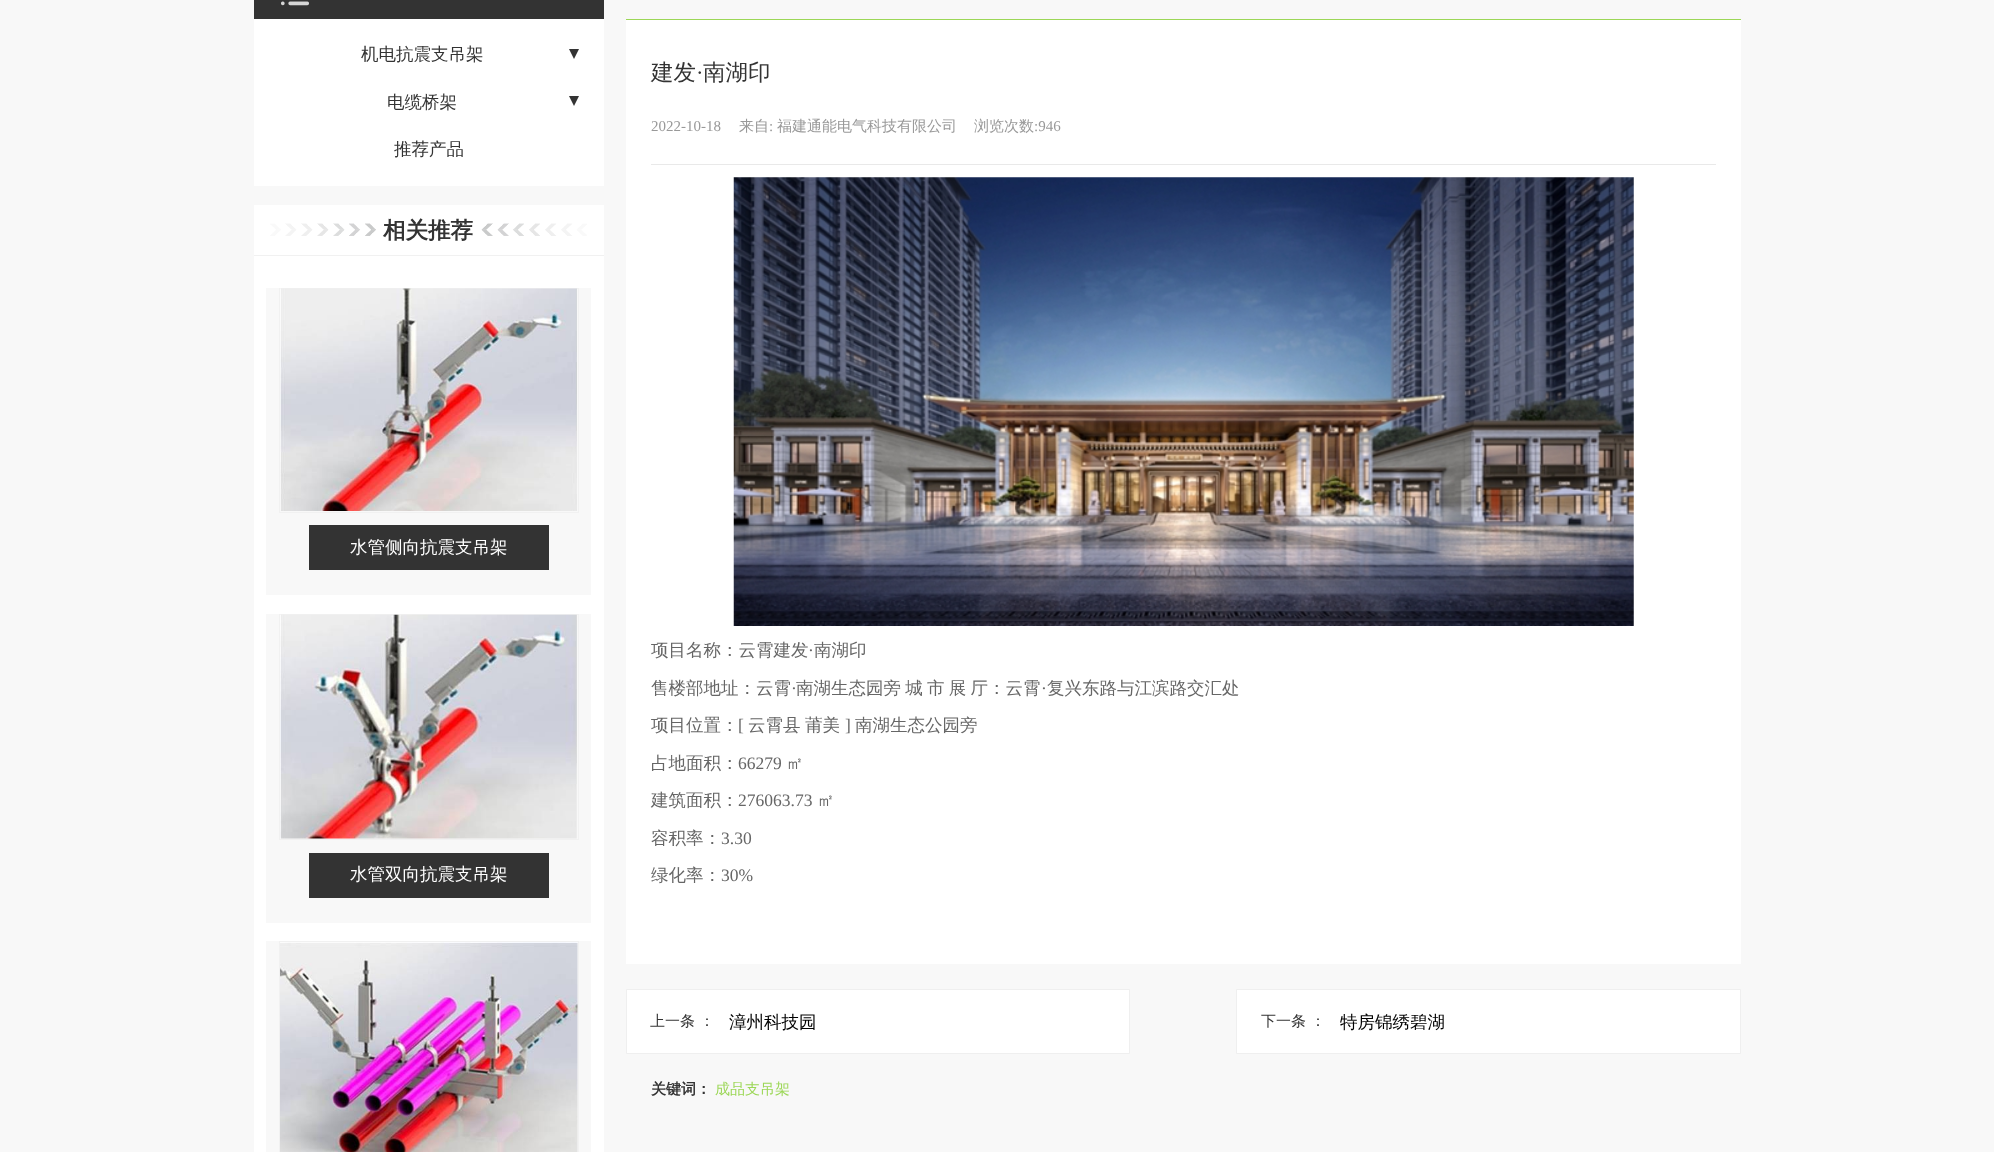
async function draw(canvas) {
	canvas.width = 1994;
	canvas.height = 1152;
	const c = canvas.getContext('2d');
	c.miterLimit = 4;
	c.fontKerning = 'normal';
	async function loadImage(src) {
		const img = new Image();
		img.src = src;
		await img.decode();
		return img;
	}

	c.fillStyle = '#f8f8f8';
	c.fillRect(0, 0, 1994, 1152);
	c.fillStyle = '#fff';
	c.fillRect(254, 19, 350, 167);
	c.fillStyle = '#333';
	c.fillRect(254, 0, 350, 19);
	c.drawImage(await loadImage('img1.png'), 281, 1, 28, 5);
	c.font = '500 17.5px WenQuanYi Zen Hei';
	c.fillText('机电抗震支吊架', 361, 60);
	c.beginPath();
	c.moveTo(569, 49);
	c.lineTo(579, 49);
	c.lineTo(574, 59);
	c.closePath();
	c.fill();
	c.fillText('电缆桥架', 387, 108);
	c.beginPath();
	c.moveTo(569, 96);
	c.lineTo(579, 96);
	c.lineTo(574, 106);
	c.closePath();
	c.fill();
	c.fillText('推荐产品', 394, 155);
	c.fillStyle = '#fff';
	c.fillRect(254, 205, 350, 947);
	c.fillStyle = '#f1f1f1';
	c.fillRect(254, 255, 350, 1);
	c.drawImage(await loadImage('img2.png'), 270, 223, 106, 13);
	c.font = 'bold 22.5px WenQuanYi Zen Hei';
	c.fillStyle = '#333';
	c.fillText('相关推荐', 383, 238);
	c.drawImage(await loadImage('img3.png'), 481, 223, 106, 13);
	c.fillStyle = '#f8f8f8';
	c.fillRect(266, 288, 325, 307);
	c.strokeStyle = '#f1f1f1';
	c.strokeRect(279.5, 288.5, 299, 224);
	c.drawImage(await loadImage('img4.png'), 280, 288, 297, 223);
	c.fillStyle = '#333';
	c.fillRect(309, 525, 240, 45);
	c.font = '500 17.5px WenQuanYi Zen Hei';
	c.fillStyle = '#fff';
	c.fillText('水管侧向抗震支吊架', 350, 553);
	c.fillStyle = '#f8f8f8';
	c.fillRect(266, 614, 325, 309);
	c.strokeRect(279.5, 614.5, 299, 225);
	c.drawImage(await loadImage('img5.png'), 280, 614, 297, 225);
	c.fillStyle = '#333';
	c.fillRect(309, 853, 240, 45);
	c.fillStyle = '#fff';
	c.fillText('水管双向抗震支吊架', 350, 880);
	c.fillStyle = '#f8f8f8';
	c.fillRect(266, 941, 325, 211);
	c.strokeRect(279.5, 941.5, 299, 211);
	c.drawImage(await loadImage('img6.png'), 280, 942, 298, 210);
	c.fillStyle = '#9cd757';
	c.fillRect(626, 19, 1115, 1);
	c.fillStyle = '#fff';
	c.fillRect(626, 20, 1115, 944);
	c.font = '500 22.5px WenQuanYi Zen Hei';
	c.fillStyle = '#333';
	c.fillText('建发', 651, 80);
	c.font = '22.5px Liberation Serif';
	c.fillText('·', 696, 80);
	c.font = '500 22.5px WenQuanYi Zen Hei';
	c.fillText('南湖印', 703, 80);
	c.fillStyle = '#e9e9e9';
	c.fillRect(651, 164, 1065, 1);
	c.font = '15px Liberation Serif';
	c.fillStyle = '#999';
	c.fillText('2022-10-18', 651, 131);
	c.font = '500 15px WenQuanYi Zen Hei';
	c.fillText('来自', 739, 131);
	c.font = '15px Liberation Serif';
	c.fillText(':', 769, 131);
	c.font = '500 15px WenQuanYi Zen Hei';
	c.fillText('福建通能电气科技有限公司', 777, 131);
	c.fillText('浏览次数', 974, 131);
	c.font = '15px Liberation Serif';
	c.fillText(':946', 1034, 131);
	c.drawImage(await loadImage('img7.png'), 733, 177, 901, 449);
	c.font = '500 17.5px WenQuanYi Zen Hei';
	c.fillStyle = '#666';
	c.fillText('项目名称：云霄建发', 651, 656);
	c.font = '17.5px Liberation Serif';
	c.fillText('·', 808, 656);
	c.font = '500 17.5px WenQuanYi Zen Hei';
	c.fillText('南湖印', 814, 656);
	c.fillText('售楼部地址：云霄', 651, 694);
	c.font = '17.5px Liberation Serif';
	c.fillText('·', 791, 694);
	c.wordSpacing = '-1px';
	c.font = '500 17.5px WenQuanYi Zen Hei';
	c.fillText('南湖生态园旁 城 市 展 厅：云霄', 796, 694);
	c.wordSpacing = '0px';
	c.font = '17.5px Liberation Serif';
	c.fillText('·', 1041, 694);
	c.font = '500 17.5px WenQuanYi Zen Hei';
	c.fillText('复兴东路与江滨路交汇处', 1047, 694);
	c.fillText('项目位置：', 651, 731);
	c.font = '17.5px Liberation Serif';
	c.fillText('[', 738, 731);
	c.font = '500 17.5px WenQuanYi Zen Hei';
	c.fillText('云霄县', 748, 731);
	c.fillText('莆美', 805, 731);
	c.font = '17.5px Liberation Serif';
	c.fillText(']', 845, 731);
	c.font = '500 17.5px WenQuanYi Zen Hei';
	c.fillText('南湖生态公园旁', 855, 731);
	c.fillText('占地面积：', 651, 769);
	c.font = '17.5px Liberation Serif';
	c.fillText('66279', 738, 769);
	c.font = '500 17.5px WenQuanYi Zen Hei';
	c.fillText('㎡', 786, 769);
	c.fillText('建筑面积：', 651, 806);
	c.font = '17.5px Liberation Serif';
	c.fillText('276063.73', 738, 806);
	c.font = '500 17.5px WenQuanYi Zen Hei';
	c.fillText('㎡', 817, 806);
	c.fillText('容积率：', 651, 844);
	c.font = '17.5px Liberation Serif';
	c.fillText('3.30', 721, 844);
	c.font = '500 17.5px WenQuanYi Zen Hei';
	c.fillText('绿化率：', 651, 881);
	c.font = '17.5px Liberation Serif';
	c.fillText('30%', 721, 881);
	c.fillStyle = '#fff';
	c.beginPath();
	c.rect(626.5, 989.5, 503, 64);
	c.fill();
	c.strokeStyle = '#efefef';
	c.stroke();
	c.font = '500 15px WenQuanYi Zen Hei';
	c.fillStyle = '#333';
	c.fillText('上一条 ：', 650, 1026);
	c.font = '500 17.5px WenQuanYi Zen Hei';
	c.fillStyle = '#000';
	c.fillText('漳州科技园', 729, 1028);
	c.fillStyle = '#fff';
	c.beginPath();
	c.rect(1236.5, 989.5, 504, 64);
	c.fill();
	c.stroke();
	c.font = '500 15px WenQuanYi Zen Hei';
	c.fillStyle = '#333';
	c.fillText('下一条 ：', 1261, 1026);
	c.font = '500 17.5px WenQuanYi Zen Hei';
	c.fillStyle = '#000';
	c.fillText('特房锦绣碧湖', 1340, 1028);
	c.font = 'bold 15px WenQuanYi Zen Hei';
	c.fillStyle = '#333';
	c.fillText('关键词：', 651, 1094);
	c.font = '500 15px WenQuanYi Zen Hei';
	c.fillStyle = '#9cd757';
	c.fillText('成品支吊架', 715, 1094);
}

draw(document.querySelector('canvas'));
